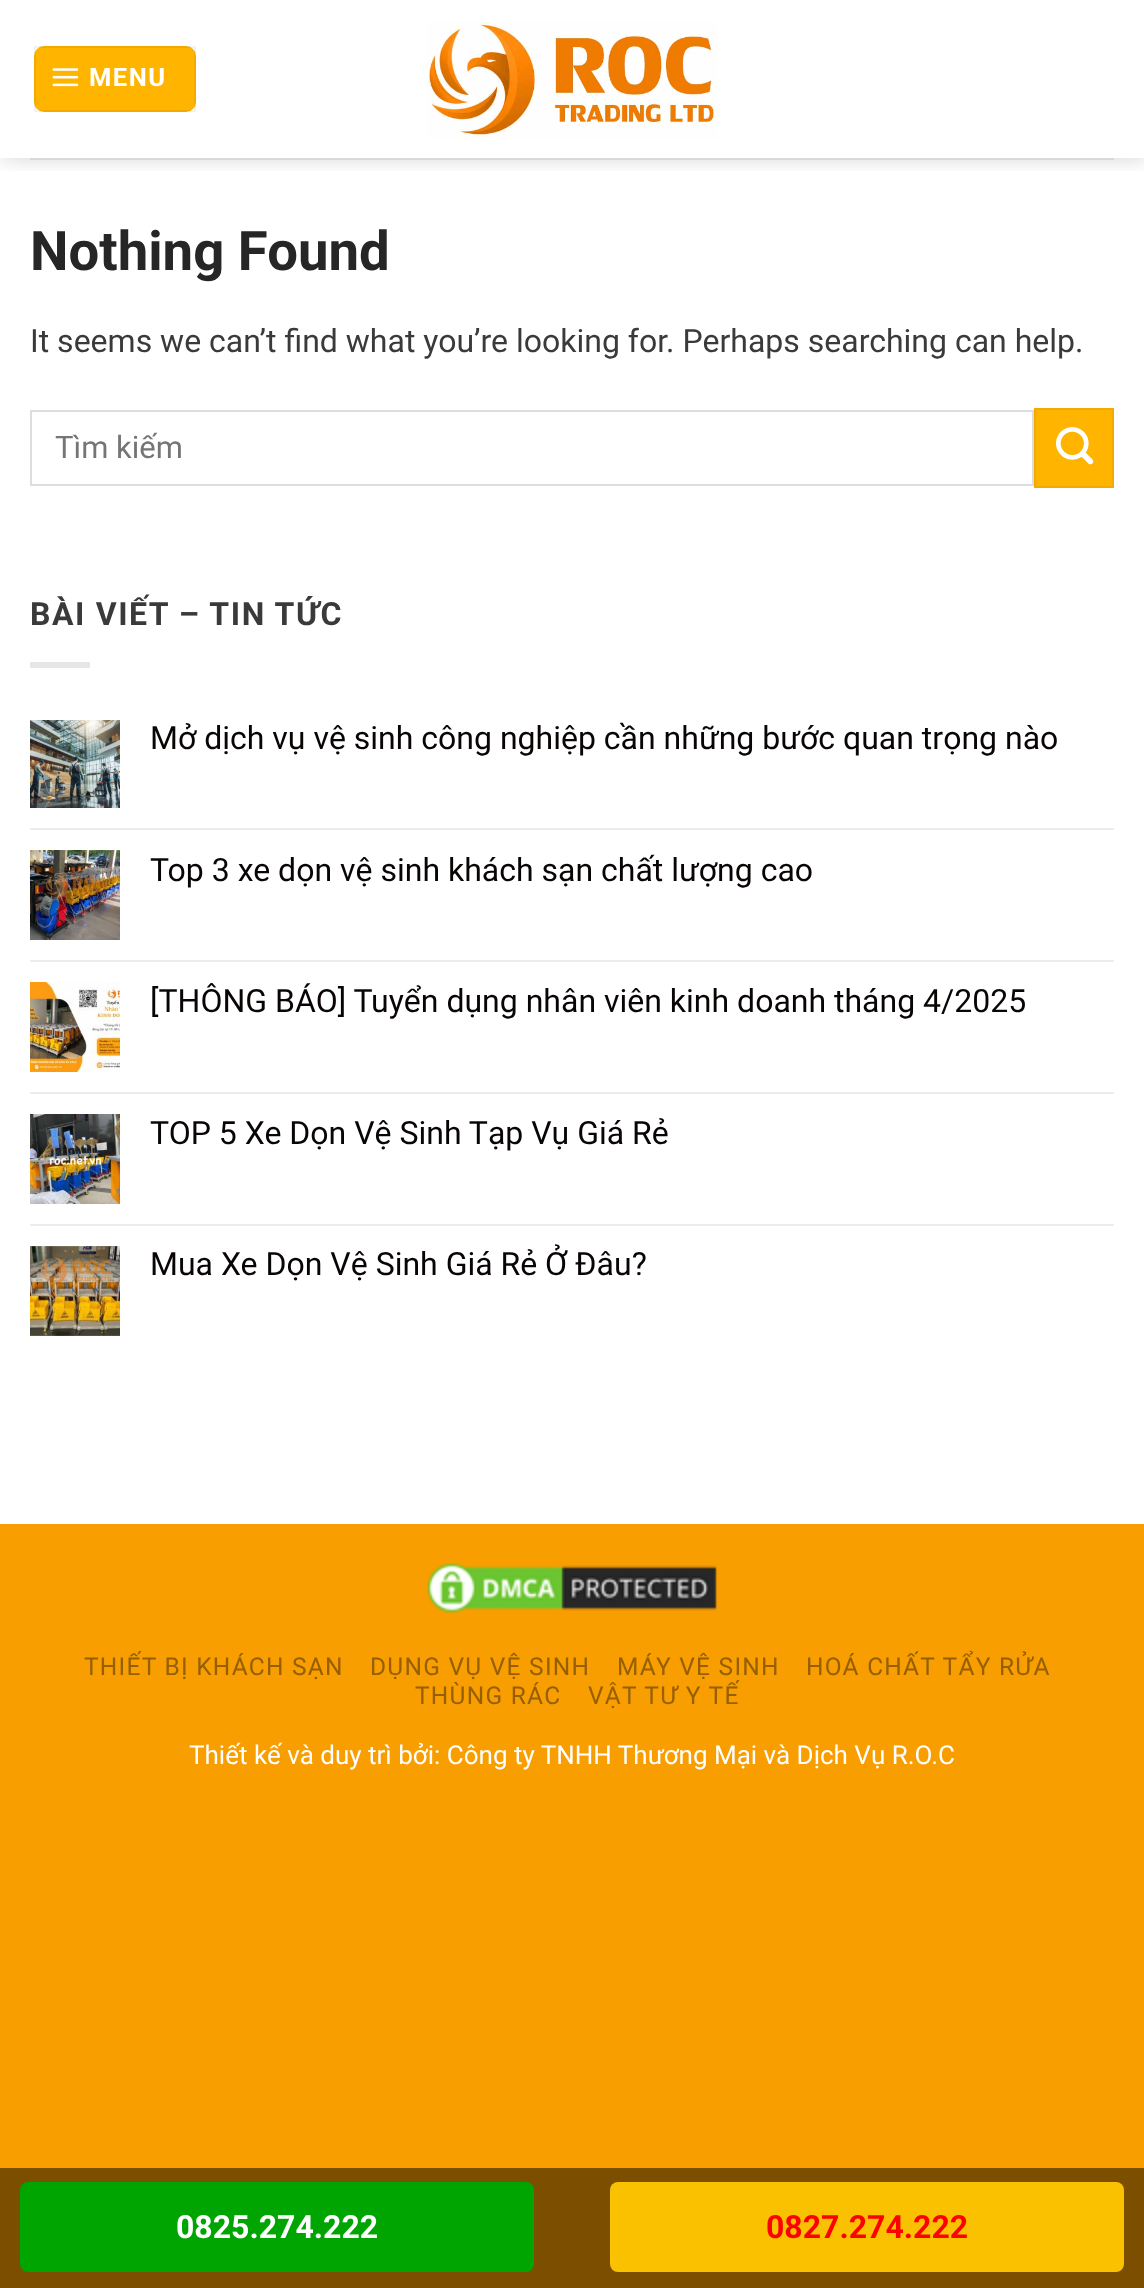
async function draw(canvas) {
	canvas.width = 1144;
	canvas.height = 2288;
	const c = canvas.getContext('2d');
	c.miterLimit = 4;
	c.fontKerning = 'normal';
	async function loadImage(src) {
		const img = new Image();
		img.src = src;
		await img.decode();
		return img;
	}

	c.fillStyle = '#f99e00';
	c.fillRect(0, 0, 1144, 2288);
	c.fillStyle = '#fff';
	c.fillRect(0, 0, 1144, 1524);
	c.save();
	c.beginPath();
	c.rect(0, 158, 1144, 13);
	c.clip();
	c.fillStyle = '#00000026';
	c.filter = 'blur(10px)';
	c.beginPath();
	c.rect(2, 2, 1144, 158);
	c.fill();
	c.filter = 'none';
	c.restore();
	c.fillStyle = '#ffb400';
	c.beginPath();
	c.roundRect(34, 46, 162, 66, 10);
	c.fill();
	c.strokeStyle = '#0000000d';
	c.lineWidth = 2;
	c.strokeRect(35, 47, 160, 64);
	c.drawImage(await loadImage('img1.png'), 52, 68, 27, 19);
	c.letterSpacing = '1.5px';
	c.font = 'bold 25.5px Roboto';
	c.fillStyle = '#fff';
	c.fillText('MENU', 89, 86);
	c.drawImage(await loadImage('img2.png'), 427, 22, 291, 117);
	c.fillStyle = '#d9d9d9';
	c.fillRect(30, 158, 1084, 2);
	c.letterSpacing = '0px';
	c.font = 'bold 54.5px Roboto';
	c.fillStyle = '#262626';
	c.fillText('Nothing Found', 30, 270);
	c.font = '32px Roboto';
	c.fillStyle = '#3a3a3a';
	c.fillText('It seems we can’t find what you’re looking for. Perhaps searching can help.', 30, 352);
	c.strokeStyle = '#ddd';
	c.strokeRect(31, 411, 1002, 74);
	c.font = '31px Roboto';
	c.fillStyle = '#757575';
	c.fillText('Tìm kiếm', 55, 458);
	c.fillStyle = '#ffb400';
	c.beginPath();
	c.rect(1035, 409, 78, 78);
	c.fill();
	c.strokeStyle = '#f2ab00';
	c.stroke();
	c.drawImage(await loadImage('img3.png'), 1056, 427, 38, 38);
	c.letterSpacing = '1.6px';
	c.font = 'bold 32px Roboto';
	c.fillStyle = '#3a3a3a';
	c.fillText('BÀI VIẾT – TIN TỨC', 30, 625);
	c.fillStyle = '#e6e6e6';
	c.fillRect(30, 662, 60, 6);
	c.drawImage(await loadImage('img4.png'), 30, 720, 90, 88);
	c.letterSpacing = '0px';
	c.font = '32px Roboto';
	c.fillStyle = '#0a0505';
	c.fillText('Mở dịch vụ vệ sinh công nghiệp cần những bước quan trọng nào', 150, 749);
	c.fillStyle = '#ececec';
	c.fillRect(30, 828, 1084, 2);
	c.drawImage(await loadImage('img5.png'), 30, 850, 90, 90);
	c.fillStyle = '#0a0505';
	c.fillText('Top 3 xe dọn vệ sinh khách sạn chất lượng cao', 150, 881);
	c.fillStyle = '#ececec';
	c.fillRect(30, 960, 1084, 2);
	c.drawImage(await loadImage('img6.png'), 30, 982, 90, 90);
	c.fillStyle = '#0a0505';
	c.fillText('[THÔNG BÁO] Tuyển dụng nhân viên kinh doanh tháng 4/2025', 150, 1012);
	c.fillStyle = '#ececec';
	c.fillRect(30, 1092, 1084, 2);
	c.drawImage(await loadImage('img7.png'), 30, 1114, 90, 90);
	c.fillStyle = '#0a0505';
	c.fillText('TOP 5 Xe Dọn Vệ Sinh Tạp Vụ Giá Rẻ', 150, 1144);
	c.fillStyle = '#ececec';
	c.fillRect(30, 1224, 1084, 2);
	c.drawImage(await loadImage('img8.png'), 30, 1246, 90, 90);
	c.fillStyle = '#0a0505';
	c.fillText('Mua Xe Dọn Vệ Sinh Giá Rẻ Ở Đâu?', 150, 1275);
	c.drawImage(await loadImage('img9.png'), 427, 1563, 290, 50);
	c.letterSpacing = '1.25px';
	c.font = '24.5px Roboto';
	c.fillStyle = '#965f00';
	for (const [text, x, y] of [
		['THIẾT BỊ KHÁCH SẠN', 84, 1675],
		['DỤNG VỤ VỆ SINH', 370, 1675],
		['MÁY VỆ SINH', 617, 1675],
		['HOÁ CHẤT TẨY RỬA', 806, 1675],
		['THÙNG RÁC', 415, 1704],
		['VẬT TƯ Y TẾ', 588, 1704],
	]) {
		c.fillText(text, x, y);
	}
	c.letterSpacing = '0px';
	c.font = '26px Roboto';
	c.fillStyle = '#fff';
	c.fillText('Thiết kế và duy trì bởi: Công ty TNHH Thương Mại và Dịch Vụ R.O.C', 189, 1764);
	c.fillStyle = '#7c4f00';
	c.fillRect(0, 2168, 1144, 120);
	c.fillStyle = '#00a502';
	c.beginPath();
	c.roundRect(20, 2182, 514, 90, 8);
	c.fill();
	c.font = 'bold 32px Roboto';
	c.fillStyle = '#fff';
	c.fillText('0825.274.222', 176, 2238);
	c.fillStyle = '#fac100';
	c.beginPath();
	c.roundRect(610, 2182, 514, 90, 8);
	c.fill();
	c.fillStyle = '#f00';
	c.fillText('0827.274.222', 766, 2238);
}

draw(document.querySelector('canvas'));
